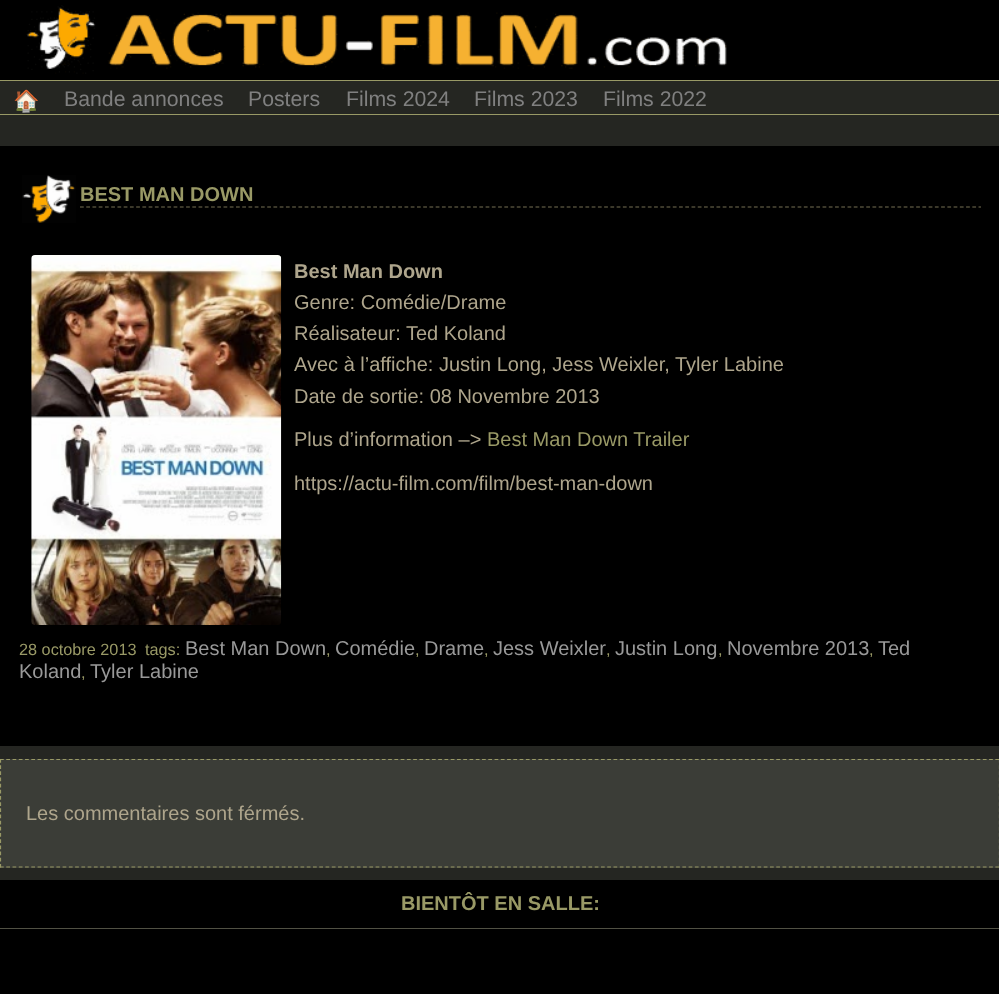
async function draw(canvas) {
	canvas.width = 999;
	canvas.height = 994;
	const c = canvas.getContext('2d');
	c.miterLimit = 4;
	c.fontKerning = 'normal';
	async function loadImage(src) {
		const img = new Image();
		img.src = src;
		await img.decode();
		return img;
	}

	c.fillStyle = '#252622';
	c.fillRect(0, 0, 999, 994);
	c.fillStyle = '#000';
	c.fillRect(0, 0, 999, 80);
	c.drawImage(await loadImage('img1.png'), 26, 5, 701, 69);
	c.fillStyle = '#996';
	c.fillRect(0, 80, 999, 1);
	c.fillRect(0, 114, 999, 1);
	c.font = '21.25px Noto Color Emoji';
	c.fillStyle = '#808080';
	c.fillText('🏠', 13, 108);
	c.font = '21.25px Liberation Sans';
	for (const [text, x, y] of [
		['Bande annonces', 64, 106],
		['Posters', 248, 106],
		['Films 2024', 346, 106],
		['Films 2023', 474, 106],
		['Films 2022', 603, 106],
	]) {
		c.fillText(text, x, y);
	}
	c.fillStyle = '#000';
	c.fillRect(0, 146, 999, 600);
	c.drawImage(await loadImage('img2.png'), 22, 175, 54, 48);
	c.beginPath();
	c.moveTo(80, 207);
	c.lineTo(981, 207);
	c.strokeStyle = '#767154';
	c.lineWidth = 1.2;
	c.setLineDash([3.75, 2.49]);
	c.stroke();
	c.font = 'bold 20px Liberation Sans';
	c.fillStyle = '#996';
	c.fillText('BEST MAN DOWN', 80, 201);
	c.drawImage(await loadImage('img3.png'), 31, 255, 251, 370);
	c.fillStyle = '#aea58c';
	c.fillText('Best Man Down', 294, 278);
	c.font = '20px Liberation Sans';
	for (const [text, x, y] of [
		['Genre: Comédie/Drame', 294, 309],
		['Réalisateur: Ted Koland', 294, 340],
		['Avec à l’affiche: Justin Long, Jess Weixler, Tyler Labine', 294, 371],
		['Date de sortie: 08 Novembre 2013', 294, 403],
		['Plus d’information –>', 294, 446],
	]) {
		c.fillText(text, x, y);
	}
	c.fillStyle = '#996';
	c.fillText('Best Man Down Trailer', 487, 446);
	c.fillStyle = '#aea58c';
	c.fillText('https://actu-film.com/film/best-man-down', 294, 490);
	c.font = '16.25px Liberation Sans';
	c.fillStyle = '#996';
	c.fillText('28 octobre 2013', 19, 655);
	c.fillText('tags:', 145, 655);
	c.font = '20px Liberation Sans';
	c.fillStyle = '#999';
	c.fillText('Best Man Down', 185, 655);
	c.font = '16.25px Liberation Sans';
	c.fillStyle = '#996';
	c.fillText(',', 326, 655);
	c.font = '20px Liberation Sans';
	c.fillStyle = '#999';
	c.fillText('Comédie', 335, 655);
	c.font = '16.25px Liberation Sans';
	c.fillStyle = '#996';
	c.fillText(',', 415, 655);
	c.font = '20px Liberation Sans';
	c.fillStyle = '#999';
	c.fillText('Drame', 424, 655);
	c.font = '16.25px Liberation Sans';
	c.fillStyle = '#996';
	c.fillText(',', 484, 655);
	c.font = '20px Liberation Sans';
	c.fillStyle = '#999';
	c.fillText('Jess Weixler', 493, 655);
	c.font = '16.25px Liberation Sans';
	c.fillStyle = '#996';
	c.fillText(',', 606, 655);
	c.font = '20px Liberation Sans';
	c.fillStyle = '#999';
	c.fillText('Justin Long', 615, 655);
	c.font = '16.25px Liberation Sans';
	c.fillStyle = '#996';
	c.fillText(',', 718, 655);
	c.font = '20px Liberation Sans';
	c.fillStyle = '#999';
	c.fillText('Novembre 2013', 727, 655);
	c.font = '16.25px Liberation Sans';
	c.fillStyle = '#996';
	c.fillText(',', 869, 655);
	c.font = '20px Liberation Sans';
	c.fillStyle = '#999';
	c.fillText('Ted', 878, 655);
	c.fillText('Koland', 19, 678);
	c.font = '16.25px Liberation Sans';
	c.fillStyle = '#996';
	c.fillText(',', 81, 678);
	c.font = '20px Liberation Sans';
	c.fillStyle = '#999';
	c.fillText('Tyler Labine', 90, 678);
	c.fillStyle = '#3b3d37';
	c.fillRect(0, 759, 999, 109);
	c.beginPath();
	c.moveTo(0, 759.5);
	c.lineTo(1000, 759.5);
	c.strokeStyle = '#996';
	c.setLineDash([3.75, 2.51]);
	c.stroke();
	c.beginPath();
	c.moveTo(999.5, 759);
	c.lineTo(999.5, 867.5);
	c.setLineDash([3.75, 2.42]);
	c.stroke();
	c.beginPath();
	c.moveTo(0, 867);
	c.lineTo(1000, 867);
	c.setLineDash([3.75, 2.51]);
	c.stroke();
	c.beginPath();
	c.moveTo(0.5, 759);
	c.lineTo(0.5, 867.5);
	c.setLineDash([3.75, 2.42]);
	c.stroke();
	c.fillStyle = '#aea58c';
	c.fillText('Les commentaires sont férmés.', 26, 820);
	c.fillStyle = '#000';
	c.fillRect(0, 880, 999, 114);
	c.fillStyle = '#515144';
	c.fillRect(0, 928, 999, 1);
	c.font = 'bold 20px Liberation Sans';
	c.fillStyle = '#996';
	c.fillText('BIENTÔT EN SALLE:', 401, 910);
}

draw(document.querySelector('canvas'));
